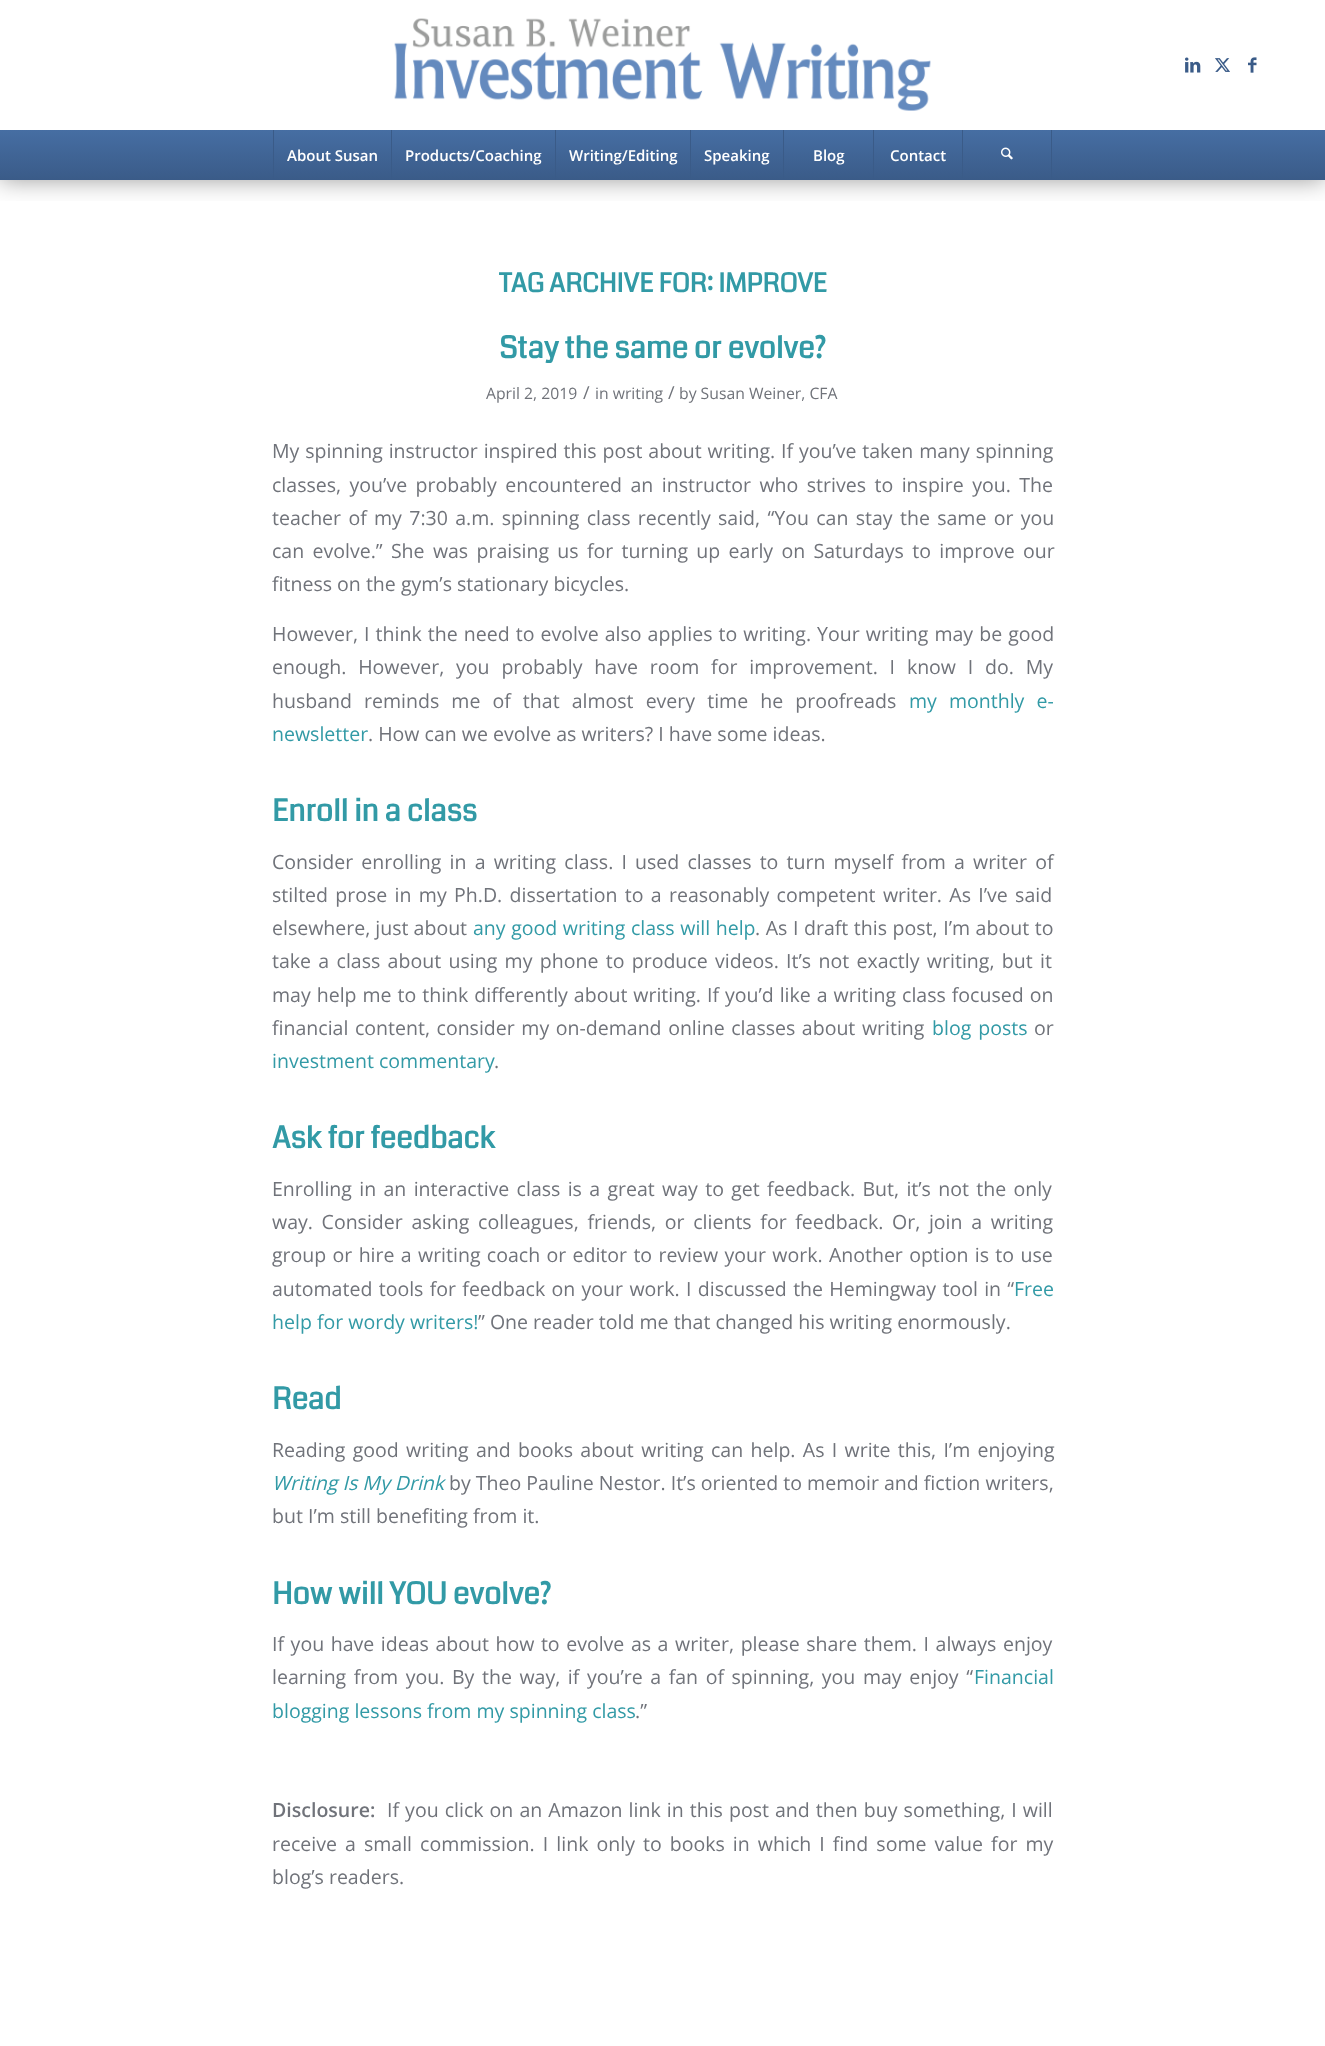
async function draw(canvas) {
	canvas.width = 1325;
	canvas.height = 2046;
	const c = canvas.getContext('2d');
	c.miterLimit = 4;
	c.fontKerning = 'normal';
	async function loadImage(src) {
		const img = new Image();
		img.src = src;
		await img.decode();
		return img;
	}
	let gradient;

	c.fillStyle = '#fff';
	c.fillRect(0, 0, 1325, 2046);
	c.save();
	c.beginPath();
	c.rect(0, 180, 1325, 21);
	c.clip();
	c.fillStyle = '#00000066';
	c.filter = 'blur(12.5px)';
	c.beginPath();
	c.rect(0, 0, 1325, 180);
	c.fill();
	c.filter = 'none';
	c.restore();
	c.drawImage(await loadImage('img1.png'), 394, 18, 537, 93);
	c.drawImage(await loadImage('img2.png'), 1185, 57, 16, 16);
	c.drawImage(await loadImage('img3.png'), 1215, 58, 15, 14);
	c.drawImage(await loadImage('img4.png'), 1248, 57, 9, 16);
	gradient = c.createLinearGradient(663, 130, 663, 180);
	gradient.addColorStop(0, '#466ea3');
	gradient.addColorStop(1, '#3a5b88');
	c.fillStyle = gradient;
	c.fillRect(0, 130, 1325, 50);
	c.fillStyle = '#3a5b88';
	c.fillRect(273, 130, 1, 50);
	c.font = '600 15px Open Sans';
	c.fillStyle = '#fff';
	c.fillText('About Susan', 287, 161);
	c.fillStyle = '#3a5b88';
	c.fillRect(391, 130, 1, 50);
	c.fillStyle = '#fff';
	c.fillText('Products/Coaching', 405, 161);
	c.fillStyle = '#3a5b88';
	c.fillRect(555, 130, 1, 50);
	c.fillStyle = '#fff';
	c.fillText('Writing/Editing', 569, 161);
	c.fillStyle = '#3a5b88';
	c.fillRect(690, 130, 1, 50);
	c.fillStyle = '#fff';
	c.fillText('Speaking', 704, 161);
	c.fillStyle = '#3a5b88';
	c.fillRect(783, 130, 1, 50);
	c.fillStyle = '#fff';
	c.fillText('Blog', 813, 161);
	c.fillStyle = '#3a5b88';
	c.fillRect(873, 130, 1, 50);
	c.fillStyle = '#fff';
	c.fillText('Contact', 890, 161);
	c.fillStyle = '#3a5b88';
	c.fillRect(1051, 130, 1, 50);
	c.fillRect(962, 130, 1, 50);
	c.drawImage(await loadImage('img5.png'), 1001, 147, 12, 13);
	c.font = 'bold 26px Coda';
	c.fillStyle = '#329aa6';
	c.fillText('TAG ARCHIVE FOR: IMPROVE', 499, 292);
	c.font = 'bold 30px Coda';
	c.fillText('Stay the same or evolve?', 499, 358);
	c.font = '15.75px Open Sans';
	c.fillStyle = '#70737a';
	c.fillText('April 2, 2019', 486, 399);
	c.font = '18px Open Sans';
	c.fillText('/', 583, 399);
	c.font = '15.75px Open Sans';
	c.fillText('in writing', 595, 399);
	c.font = '18px Open Sans';
	c.fillText('/', 668, 399);
	c.font = '15.75px Open Sans';
	c.fillText('by Susan Weiner, CFA', 679, 399);
	c.wordSpacing = '0.75px';
	c.font = '19.55px Open Sans';
	c.fillText('My spinning instructor inspired this post about writing. If you’ve taken many spinning', 272, 458);
	c.wordSpacing = '3.4px';
	c.fillText('classes, you’ve probably encountered an instructor who strives to inspire you. The', 272, 492);
	c.wordSpacing = '2.25px';
	c.fillText('teacher of my 7:30 a.m. spinning class recently said, “You can stay the same or you', 272, 525);
	c.wordSpacing = '3.25px';
	c.fillText('can evolve.” She was praising us for turning up early on Saturdays to improve our', 272, 558);
	c.wordSpacing = '0px';
	c.fillText('fitness on the gym’s stationary bicycles.', 272, 591);
	c.wordSpacing = '1px';
	c.fillText('However, I think the need to evolve also applies to writing. Your writing may be good', 272, 641);
	c.wordSpacing = '6.75px';
	c.fillText('enough. However, you probably have room for improvement. I know I do. My', 272, 674);
	c.wordSpacing = '7px';
	c.fillText('husband reminds me of that almost every time he proofreads', 272, 708);
	c.fillStyle = '#329aa6';
	c.fillText('my monthly e-', 909, 708);
	c.wordSpacing = '0px';
	c.fillText('newsletter', 272, 741);
	c.fillStyle = '#70737a';
	c.fillText('. How can we evolve as writers? I have some ideas.', 368, 741);
	c.font = 'bold 30px Coda';
	c.fillStyle = '#329aa6';
	c.fillText('Enroll in a class', 272, 821);
	c.wordSpacing = '3.1px';
	c.font = '19.55px Open Sans';
	c.fillStyle = '#70737a';
	c.fillText('Consider enrolling in a writing class. I used classes to turn myself from a writer of', 272, 869);
	c.wordSpacing = '2.25px';
	c.fillText('stilted prose in my Ph.D. dissertation to a reasonably competent writer. As I’ve said', 272, 902);
	c.wordSpacing = '0px';
	c.fillText('elsewhere, just about', 272, 935);
	c.wordSpacing = '0.5px';
	c.fillStyle = '#329aa6';
	c.fillText('any good writing class will help', 473, 935);
	c.fillStyle = '#70737a';
	c.fillText('. As I draft this post, I’m about to', 755, 935);
	c.wordSpacing = '2.25px';
	c.fillText('take a class about using my phone to produce videos. It’s not exactly writing, but it', 272, 968);
	c.wordSpacing = '0.9px';
	c.fillText('may help me to think differently about writing. If you’d like a writing class focused on', 272, 1002);
	c.wordSpacing = '1.5px';
	c.fillText('financial content, consider my on-demand online classes about writing', 272, 1035);
	c.wordSpacing = '2px';
	c.fillStyle = '#329aa6';
	c.fillText('blog posts', 932, 1035);
	c.wordSpacing = '0px';
	c.fillStyle = '#70737a';
	c.fillText('or', 1034, 1035);
	c.fillStyle = '#329aa6';
	c.fillText('investment commentary', 272, 1068);
	c.fillStyle = '#70737a';
	c.fillText('.', 494, 1068);
	c.font = 'bold 30px Coda';
	c.fillStyle = '#329aa6';
	c.fillText('Ask for feedback', 272, 1148);
	c.wordSpacing = '2.25px';
	c.font = '19.55px Open Sans';
	c.fillStyle = '#70737a';
	c.fillText('Enrolling in an interactive class is a great way to get feedback. But, it’s not the only', 272, 1196);
	c.wordSpacing = '3.6px';
	c.fillText('way. Consider asking colleagues, friends, or clients for feedback. Or, join a writing', 272, 1229);
	c.wordSpacing = '1.25px';
	c.fillText('group or hire a writing coach or editor to review your work. Another option is to use', 272, 1262);
	c.fillText('automated tools for feedback on your work. I discussed the Hemingway tool in “', 272, 1296);
	c.wordSpacing = '0px';
	c.fillStyle = '#329aa6';
	c.fillText('Free', 1014, 1296);
	c.fillText('help for wordy writers!', 272, 1329);
	c.fillStyle = '#70737a';
	c.fillText('” One reader told me that changed his writing enormously.', 478, 1329);
	c.font = 'bold 30px Coda';
	c.fillStyle = '#329aa6';
	c.fillText('Read', 272, 1409);
	c.wordSpacing = '2.25px';
	c.font = '19.55px Open Sans';
	c.fillStyle = '#70737a';
	c.fillText('Reading good writing and books about writing can help. As I write this, I’m enjoying', 272, 1457);
	c.wordSpacing = '0px';
	c.font = 'italic 19.55px Open Sans';
	c.fillStyle = '#329aa6';
	c.fillText('Writing Is My Drink', 272, 1490);
	c.font = '19.55px Open Sans';
	c.fillStyle = '#70737a';
	c.fillText('by Theo Pauline Nestor. It’s oriented to memoir and fiction writers,', 449, 1490);
	c.fillText('but I’m still benefiting from it.', 272, 1523);
	c.font = 'bold 30px Coda';
	c.fillStyle = '#329aa6';
	c.fillText('How will YOU evolve?', 272, 1604);
	c.wordSpacing = '1.5px';
	c.font = '19.55px Open Sans';
	c.fillStyle = '#70737a';
	c.fillText('If you have ideas about how to evolve as a writer, please share them. I always enjoy', 272, 1651);
	c.wordSpacing = '2.5px';
	c.fillText('learning from you. By the way, if you’re a fan of spinning, you may enjoy “', 272, 1684);
	c.wordSpacing = '0px';
	c.fillStyle = '#329aa6';
	c.fillText('Financial', 974, 1684);
	c.fillText('blogging lessons from my spinning class', 272, 1718);
	c.fillStyle = '#70737a';
	c.fillText('.”', 635, 1718);
	c.font = '600 19.55px Open Sans';
	c.fillText('Disclosure:', 272, 1817);
	c.wordSpacing = '1px';
	c.font = '19.55px Open Sans';
	c.fillText('If you click on an Amazon link in this post and then buy something, I will', 387, 1817);
	c.wordSpacing = '3px';
	c.fillText('receive a small commission. I link only to books in which I find some value for my', 272, 1851);
	c.wordSpacing = '0px';
	c.fillText('blog’s readers.', 272, 1884);
}

draw(document.querySelector('canvas'));
